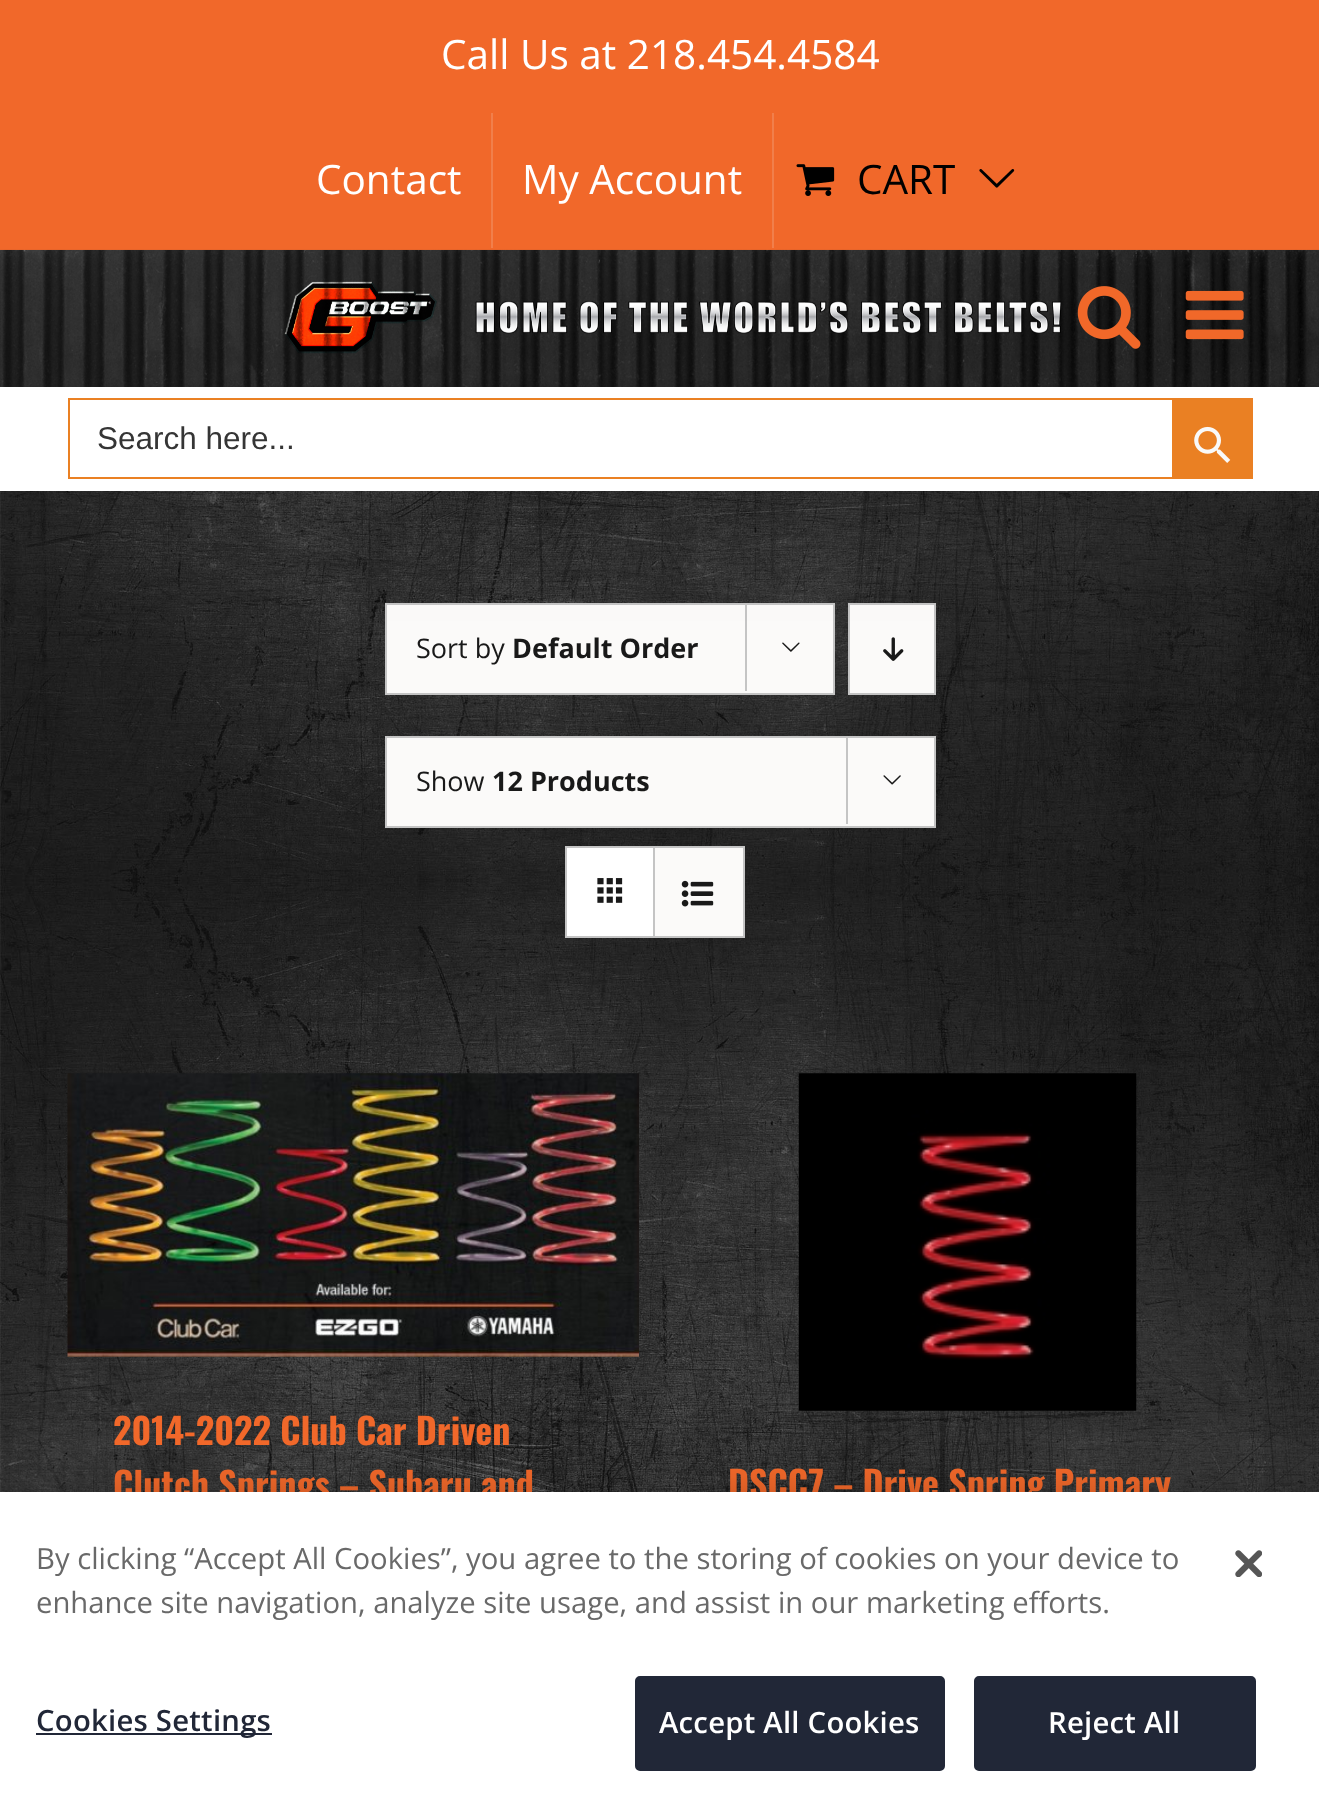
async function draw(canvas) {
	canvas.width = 1319;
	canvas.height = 1817;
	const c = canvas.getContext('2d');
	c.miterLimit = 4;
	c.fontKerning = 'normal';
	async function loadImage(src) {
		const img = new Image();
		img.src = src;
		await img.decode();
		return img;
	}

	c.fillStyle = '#fff';
	c.fillRect(0, 0, 1319, 1817);
	c.drawImage(await loadImage('img1.png'), 0, 386, 1319, 1106);
	c.fillStyle = '#fbfaf9';
	c.beginPath();
	c.rect(386, 604, 448, 90);
	c.fill();
	c.strokeStyle = '#c4c4c4';
	c.lineWidth = 2;
	c.stroke();
	c.fillStyle = '#c4c4c4';
	c.fillRect(745, 603, 2, 88);
	c.drawImage(await loadImage('img8.png'), 782, 642, 18, 10);
	c.fillStyle = '#fbfaf9';
	c.beginPath();
	c.rect(849, 604, 86, 90);
	c.fill();
	c.stroke();
	c.drawImage(await loadImage('img9.png'), 883, 637, 21, 24);
	c.fillStyle = '#00000024';
	c.filter = 'blur(56px)';
	c.beginPath();
	c.rect(5, 27, 1311, 482);
	c.fill();
	c.filter = 'none';
	c.fillStyle = '#f1682a';
	c.fillRect(0, 0, 1319, 250);
	c.font = '40.5px Open Sans';
	c.fillStyle = '#fff';
	c.fillText('Call Us at 218.454.4584', 441, 69);
	c.fillText('Contact', 316, 194);
	c.fillStyle = '#f17f4b';
	c.fillRect(491, 113, 2, 135);
	c.fillStyle = '#fff';
	c.fillText('My Account', 522, 194);
	c.fillStyle = '#f17f4b';
	c.fillRect(772, 113, 2, 135);
	c.drawImage(await loadImage('img2.png'), 796, 164, 39, 32);
	c.fillStyle = '#000';
	c.fillText('CART', 857, 194);
	c.drawImage(await loadImage('img3.png'), 979, 169, 36, 19);
	c.drawImage(await loadImage('img4.png'), 0, 249, 1319, 138);
	c.drawImage(await loadImage('img5.png'), 1077, 286, 64, 63);
	c.drawImage(await loadImage('img6.png'), 1185, 290, 59, 50);
	for (const [x, y, w, h, color] of [
		[0, 387, 1319, 104, '#fff'],
		[68, 398, 1104, 2, '#ea8023'],
		[68, 477, 1104, 2, '#ea8023'],
		[68, 398, 2, 81, '#ea8023'],
	]) {
		c.fillStyle = color;
		c.fillRect(x, y, w, h);
	}
	c.font = '31.5px Liberation Sans';
	c.fillStyle = '#353535';
	c.fillText('Search here...', 97, 449);
	c.fillStyle = '#ea8023';
	c.fillRect(1172, 398, 81, 81);
	c.drawImage(await loadImage('img7.png'), 1194, 426, 37, 37);
	c.font = '27px Open Sans';
	c.fillStyle = '#191919';
	c.fillText('Sort by', 416, 658);
	c.font = 'bold 27px Open Sans';
	c.fillText('Default Order', 512, 658);
	c.fillStyle = '#fbfaf9';
	c.beginPath();
	c.rect(386, 737, 549, 90);
	c.fill();
	c.stroke();
	c.font = '27px Open Sans';
	c.fillStyle = '#191919';
	c.fillText('Show', 416, 791);
	c.font = 'bold 27px Open Sans';
	c.fillText('12 Products', 492, 791);
	c.fillStyle = '#c4c4c4';
	c.fillRect(846, 736, 2, 88);
	c.drawImage(await loadImage('img10.png'), 883, 775, 18, 10);
	c.strokeRect(566, 847, 178, 90);
	c.fillStyle = '#fff';
	c.fillRect(567, 848, 86, 88);
	c.fillStyle = '#c4c4c4';
	c.fillRect(653, 848, 2, 88);
	c.drawImage(await loadImage('img11.png'), 597, 878, 26, 25);
	c.fillStyle = '#fbfaf9';
	c.fillRect(655, 848, 88, 88);
	c.drawImage(await loadImage('img12.png'), 681, 880, 33, 27);
	c.drawImage(await loadImage('img13.png'), 67, 1073, 572, 284);
	c.font = 'bold 36px Oswald';
	c.fillStyle = '#f1682a';
	c.fillText('2014-2022 Club Car Driven', 113, 1445);
	c.fillText('Clutch Springs – Subaru and', 113, 1499);
	c.drawImage(await loadImage('img14.png'), 798, 1073, 339, 338);
	c.fillText('DSCC7 – Drive Spring Primary', 728, 1498);
	c.fillStyle = '#00000033';
	c.filter = 'blur(20px)';
	c.beginPath();
	c.rect(0, 1492, 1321, 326);
	c.fill();
	c.filter = 'none';
	c.fillStyle = '#fff';
	c.fillRect(0, 1492, 1319, 325);
	c.font = '29.25px Open Sans';
	c.fillStyle = '#696969';
	c.fillText('By clicking “Accept All Cookies”, you agree to the storing of cookies on your device to', 36, 1569);
	c.fillText('enhance site navigation, analyze site usage, and assist in our marketing efforts.', 36, 1613);
	c.fillStyle = '#212737';
	c.fillRect(36, 1733, 236, 2);
	c.letterSpacing = '0.25px';
	c.font = '600 29.25px Open Sans';
	c.fillText('Cookies Settings', 36, 1731);
	c.beginPath();
	c.roundRect(636, 1677, 308, 93, 4);
	c.fill();
	c.strokeStyle = '#212737';
	c.stroke();
	c.fillStyle = '#fff';
	c.fillText('Accept All Cookies', 659, 1733);
	c.fillStyle = '#212737';
	c.beginPath();
	c.roundRect(975, 1677, 280, 93, 4);
	c.fill();
	c.stroke();
	c.fillStyle = '#fff';
	c.fillText('Reject All', 1048, 1733);
	c.drawImage(await loadImage('img15.png'), 1235, 1550, 27, 27);
}

draw(document.querySelector('canvas'));
